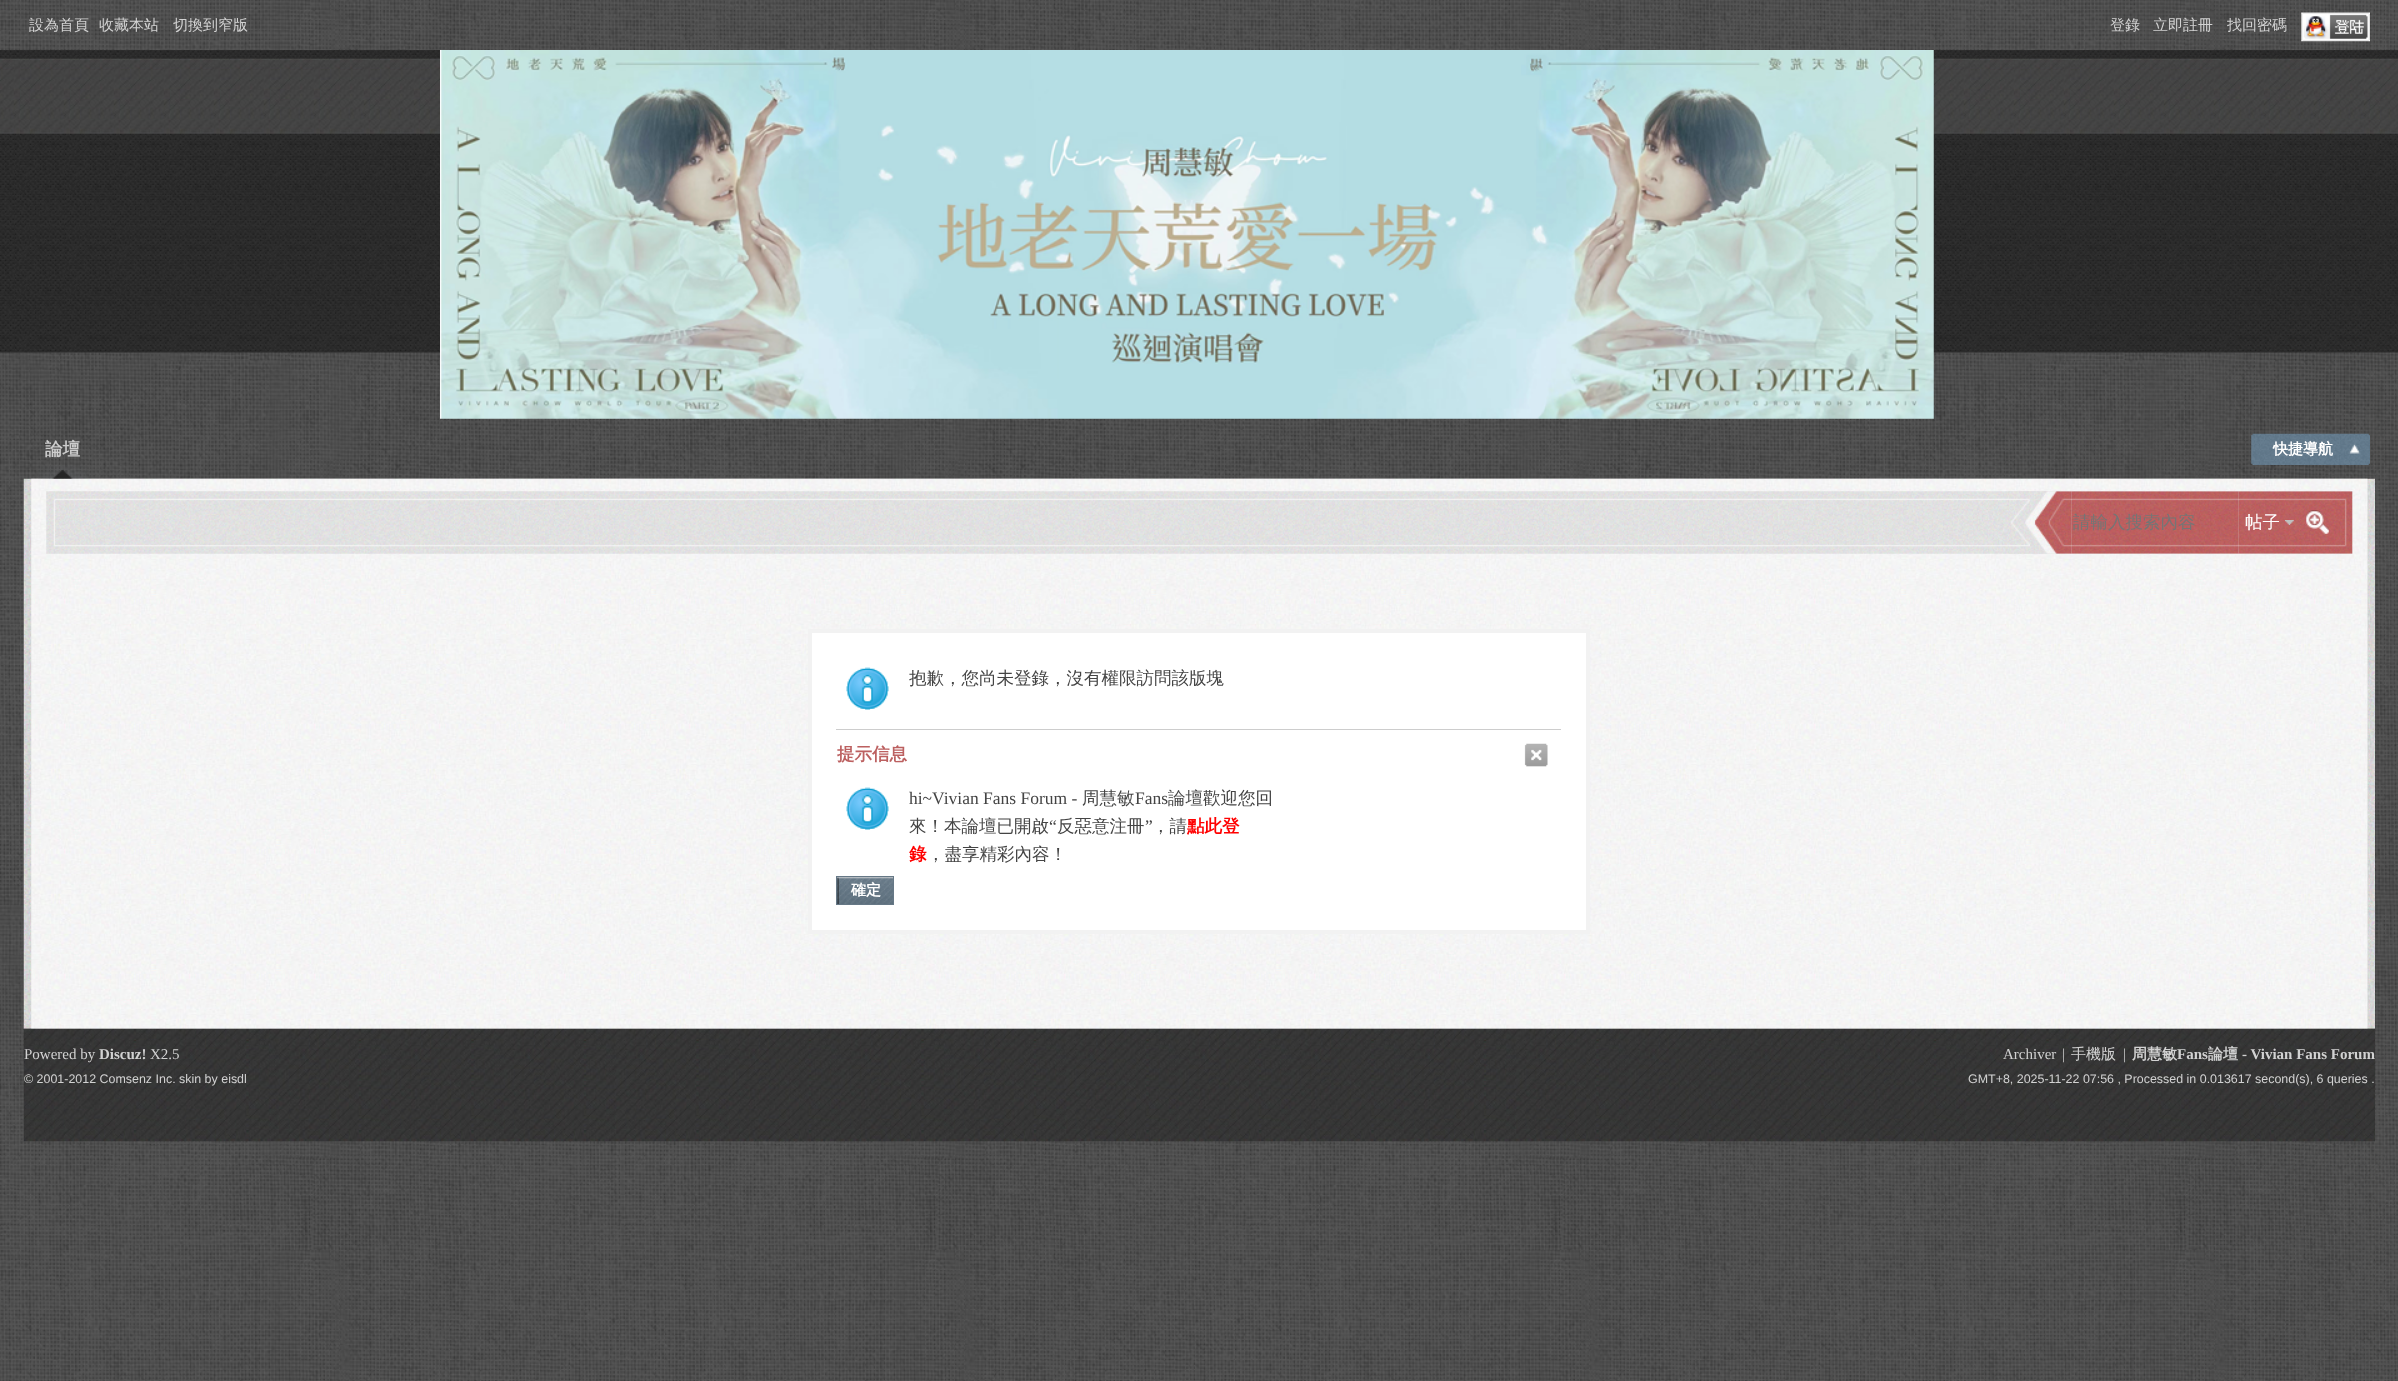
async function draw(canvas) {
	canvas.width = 2398;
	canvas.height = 1381;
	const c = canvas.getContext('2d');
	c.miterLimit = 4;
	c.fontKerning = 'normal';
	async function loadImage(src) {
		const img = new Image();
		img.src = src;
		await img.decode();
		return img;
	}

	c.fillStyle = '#fff';
	c.fillRect(0, 0, 2398, 1381);
	c.drawImage(await loadImage('img1.png'), 0, 0, 2398, 1381);
	c.font = '500 15px WenQuanYi Zen Hei';
	c.fillStyle = '#d2d2d2';
	for (const [text, x, y] of [
		['設為首頁', 29, 30],
		['收藏本站', 99, 30],
		['切換到窄版', 173, 30],
		['登錄', 2110, 30],
		['立即註冊', 2153, 30],
		['找回密碼', 2227, 30],
	]) {
		c.fillText(text, x, y);
	}
	c.drawImage(await loadImage('img2.png'), 2301, 12, 69, 30);
	c.drawImage(await loadImage('img3.png'), 0, 50, 2398, 303);
	c.drawImage(await loadImage('img4.png'), 440, 50, 1494, 369);
	c.drawImage(await loadImage('img7.png'), 23, 478, 2352, 551);
	c.drawImage(await loadImage('img8.png'), 31, 478, 2337, 551);
	c.drawImage(await loadImage('img5.png'), 38, 465, 50, 14);
	c.font = 'bold 17.5px WenQuanYi Zen Hei';
	c.fillStyle = '#ccc';
	c.fillText('論壇', 45, 455);
	c.drawImage(await loadImage('img6.png'), 2251, 433, 119, 32);
	c.font = 'bold 15px WenQuanYi Zen Hei';
	c.fillStyle = '#fff';
	c.fillText('快捷導航', 2273, 454);
	c.drawImage(await loadImage('img9.png'), 46, 491, 2307, 63);
	c.drawImage(await loadImage('img10.png'), 2009, 491, 63, 63);
	c.drawImage(await loadImage('img11.png'), 2071, 491, 168, 63);
	c.font = '500 17.5px WenQuanYi Zen Hei';
	c.fillStyle = '#757575';
	c.fillText('請輸入搜索內容', 2073, 528);
	c.drawImage(await loadImage('img12.png'), 2238, 491, 62, 63);
	c.drawImage(await loadImage('img13.png'), 2285, 520, 9, 5);
	c.fillStyle = '#fff';
	c.fillText('帖子', 2245, 528);
	c.drawImage(await loadImage('img14.png'), 2300, 491, 53, 63);
	c.beginPath();
	c.rect(810, 631, 778, 301);
	c.fill();
	c.strokeStyle = '#f2f2f2';
	c.lineWidth = 4;
	c.stroke();
	c.drawImage(await loadImage('img15.png'), 846, 667, 43, 43);
	c.fillStyle = '#444';
	c.fillText('抱歉，您尚未登錄，沒有權限訪問該版塊', 909, 684);
	c.fillStyle = '#cdcdcd';
	c.fillRect(836, 729, 725, 1);
	c.font = 'bold 17.5px WenQuanYi Zen Hei';
	c.fillStyle = '#bc6060';
	c.fillText('提示信息', 837, 760);
	c.drawImage(await loadImage('img16.png'), 1524, 743, 24, 24);
	c.drawImage(await loadImage('img15.png'), 846, 787, 43, 43);
	c.font = '17.5px Liberation Serif';
	c.fillStyle = '#444';
	c.fillText('hi~Vivian Fans Forum -', 909, 804);
	c.font = '500 17.5px WenQuanYi Zen Hei';
	c.fillText('周慧敏', 1082, 804);
	c.font = '17.5px Liberation Serif';
	c.fillText('Fans', 1135, 804);
	c.font = '500 17.5px WenQuanYi Zen Hei';
	c.fillText('論壇歡迎您回', 1168, 804);
	c.fillText('來！本論壇已開啟', 909, 832);
	c.font = '17.5px Liberation Serif';
	c.fillText('“', 1049, 832);
	c.font = '500 17.5px WenQuanYi Zen Hei';
	c.fillText('反惡意注冊', 1057, 832);
	c.font = '17.5px Liberation Serif';
	c.fillText('”', 1145, 832);
	c.font = '500 17.5px WenQuanYi Zen Hei';
	c.fillText('，請', 1152, 832);
	c.font = 'bold 17.5px WenQuanYi Zen Hei';
	c.fillStyle = '#f00';
	c.fillText('點此登', 1187, 832);
	c.fillText('錄', 909, 860);
	c.font = '500 17.5px WenQuanYi Zen Hei';
	c.fillStyle = '#444';
	c.fillText('，盡享精彩內容！', 927, 860);
	c.drawImage(await loadImage('img17.png'), 837, 877, 56, 27);
	c.strokeStyle = '#667886';
	c.lineWidth = 1;
	c.strokeRect(836.5, 876.5, 57, 28);
	c.font = 'bold 15px WenQuanYi Zen Hei';
	c.fillStyle = '#fff';
	c.fillText('確定', 851, 895);
	c.drawImage(await loadImage('img18.png'), 23, 1028, 2352, 114);
	c.font = '15px Liberation Serif';
	c.fillStyle = '#d2d2d2';
	c.fillText('Powered by', 24, 1059);
	c.font = 'bold 15px Liberation Serif';
	c.fillText('Discuz!', 99, 1059);
	c.font = '15px Liberation Serif';
	c.fillText('X2.5', 150, 1059);
	c.font = '12.45px Liberation Sans';
	c.fillText('© 2001-2012 Comsenz Inc. skin by eisdl', 24, 1083);
	c.font = '15px Liberation Serif';
	c.fillText('Archiver', 2003, 1059);
	c.fillStyle = '#ccc';
	c.fillText('|', 2062, 1059);
	c.font = '500 15px WenQuanYi Zen Hei';
	c.fillStyle = '#d2d2d2';
	c.fillText('手機版', 2071, 1059);
	c.font = '15px Liberation Serif';
	c.fillStyle = '#ccc';
	c.fillText('|', 2123, 1059);
	c.font = 'bold 15px WenQuanYi Zen Hei';
	c.fillStyle = '#d2d2d2';
	c.fillText('周慧敏', 2132, 1059);
	c.font = 'bold 15px Liberation Serif';
	c.fillText('Fans', 2177, 1059);
	c.font = 'bold 15px WenQuanYi Zen Hei';
	c.fillText('論壇', 2208, 1059);
	c.font = 'bold 15px Liberation Serif';
	c.fillText('- Vivian Fans Forum', 2242, 1059);
	c.font = '12.45px Liberation Sans';
	c.fillText('GMT+8, 2025-11-22 07:56 , Processed in 0.013617 second(s), 6 queries .', 1968, 1083);
}

draw(document.querySelector('canvas'));
